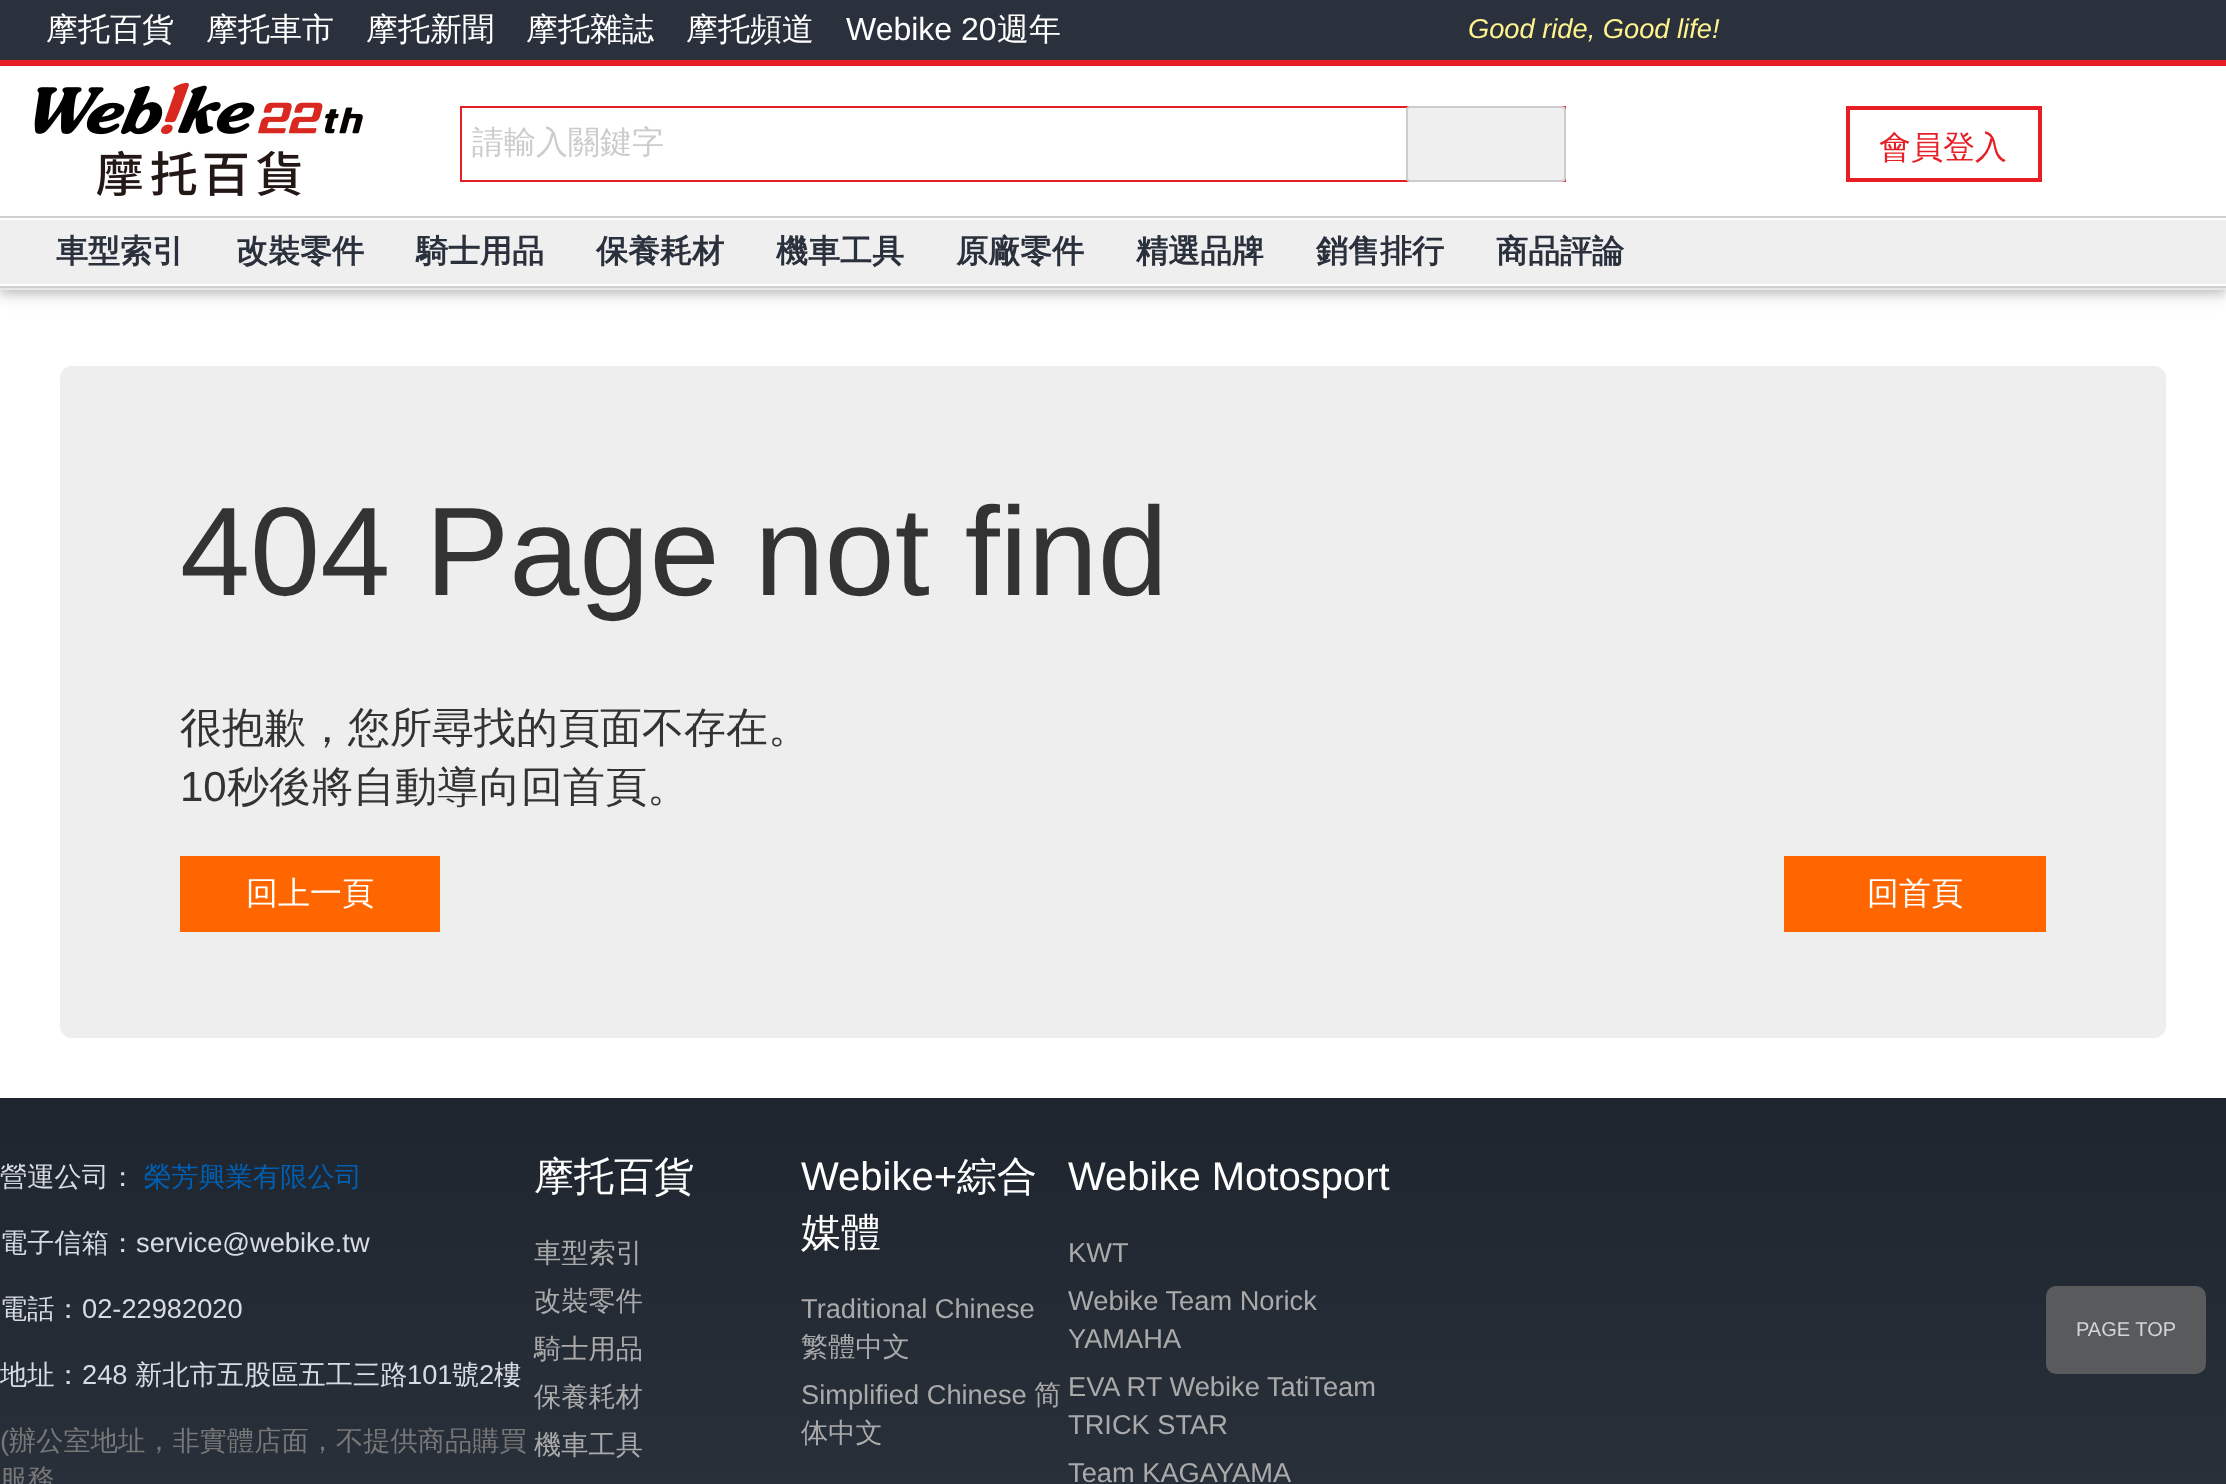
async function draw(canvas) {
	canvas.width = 2226;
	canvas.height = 1484;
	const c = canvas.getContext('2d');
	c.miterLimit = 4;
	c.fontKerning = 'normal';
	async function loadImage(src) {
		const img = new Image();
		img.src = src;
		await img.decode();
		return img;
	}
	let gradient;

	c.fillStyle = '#fff';
	c.fillRect(0, 0, 2226, 1484);
	c.fillStyle = '#0000001f';
	c.filter = 'blur(10px)';
	c.beginPath();
	c.rect(0, 4, 2226, 290);
	c.fill();
	c.filter = 'none';
	c.fillStyle = '#00000029';
	c.filter = 'blur(5px)';
	c.beginPath();
	c.rect(0, 4, 2226, 290);
	c.fill();
	c.filter = 'none';
	for (const [x, y, w, h, color] of [
		[0, 66, 2226, 150, '#fff'],
		[0, 288, 2226, 2, '#e7e7e7'],
		[0, 0, 2226, 60, '#2a313c'],
		[0, 60, 2226, 6, '#e61e25'],
	]) {
		c.fillStyle = color;
		c.fillRect(x, y, w, h);
	}
	c.font = '500 32px WenQuanYi Zen Hei';
	c.fillStyle = '#fff';
	for (const [text, x, y] of [
		['摩托百貨', 46, 40],
		['摩托車市', 206, 40],
		['摩托新聞', 366, 40],
		['摩托雜誌', 526, 40],
		['摩托頻道', 686, 40],
	]) {
		c.fillText(text, x, y);
	}
	c.font = '32px Liberation Sans';
	c.fillText('Webike 20', 846, 40);
	c.font = '500 32px WenQuanYi Zen Hei';
	c.fillText('週年', 997, 40);
	c.font = 'italic 27.25px Liberation Sans';
	c.fillStyle = '#fff38e';
	c.fillText('Good ride, Good life!', 1468, 38);
	c.drawImage(await loadImage('img1.png'), 34, 82, 329, 114);
	c.strokeStyle = '#e61e25';
	c.lineWidth = 2;
	c.strokeRect(461, 107, 1104, 74);
	c.font = '500 32px WenQuanYi Zen Hei';
	c.fillStyle = '#ccc';
	c.fillText('請輸入關鍵字', 472, 153);
	c.fillStyle = '#efefef';
	c.beginPath();
	c.roundRect(1407, 107, 158, 74, 3);
	c.fill();
	c.strokeStyle = '#ccc';
	c.stroke();
	c.strokeStyle = '#e61e25';
	c.lineWidth = 4;
	c.strokeRect(1848, 108, 192, 72);
	c.fillStyle = '#e61e25';
	c.fillText('會員登入', 1879, 158);
	for (const [x, y, w, h, color] of [
		[0, 220, 2226, 64, '#efefef'],
		[0, 216, 2226, 2, '#d0d0d0'],
		[0, 286, 2226, 2, '#d0d0d0'],
		[0, 218, 2226, 2, '#fff'],
	]) {
		c.fillStyle = color;
		c.fillRect(x, y, w, h);
	}
	c.font = 'bold 32px WenQuanYi Zen Hei';
	c.fillStyle = '#2a313c';
	for (const [text, x, y] of [
		['車型索引', 56, 262],
		['改裝零件', 236, 262],
		['騎士用品', 416, 262],
		['保養耗材', 596, 262],
		['機車工具', 776, 262],
		['原廠零件', 956, 262],
		['精選品牌', 1136, 262],
		['銷售排行', 1316, 262],
		['商品評論', 1496, 262],
	]) {
		c.fillText(text, x, y);
	}
	c.fillStyle = '#fff';
	c.fillRect(0, 284, 2226, 2);
	c.fillStyle = '#eee';
	c.beginPath();
	c.roundRect(60, 366, 2106, 672, 12);
	c.fill();
	c.font = '126px Liberation Sans';
	c.fillStyle = '#333';
	c.fillText('404 Page not find', 180, 595);
	c.font = '500 42px WenQuanYi Zen Hei';
	c.fillText('很抱歉，您所尋找的頁面不存在。', 180, 742);
	c.font = '42px Liberation Sans';
	c.fillText('10', 180, 801);
	c.font = '500 42px WenQuanYi Zen Hei';
	c.fillText('秒後將自動導向回首頁。', 227, 801);
	c.fillStyle = '#f60';
	c.fillRect(180, 856, 260, 76);
	c.font = '500 32px WenQuanYi Zen Hei';
	c.fillStyle = '#fff';
	c.fillText('回上一頁', 246, 904);
	c.fillStyle = '#f60';
	c.fillRect(1784, 856, 262, 76);
	c.fillStyle = '#fff';
	c.fillText('回首頁', 1867, 904);
	gradient = c.createLinearGradient(1113, 1098, 1113, 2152);
	gradient.addColorStop(0, '#1e252e');
	gradient.addColorStop(1, '#39424f');
	c.fillStyle = gradient;
	c.fillRect(0, 1098, 2226, 386);
	c.font = '500 27.25px WenQuanYi Zen Hei';
	c.fillStyle = '#d7dbe2';
	c.fillText('營運公司：', 0, 1186);
	c.fillStyle = '#005fb3';
	c.fillText('榮芳興業有限公司', 144, 1186);
	c.fillStyle = '#d7dbe2';
	c.fillText('電子信箱：', 0, 1252);
	c.font = '27.25px Liberation Sans';
	c.fillText('service@webike.tw', 136, 1252);
	c.font = '500 27.25px WenQuanYi Zen Hei';
	c.fillText('電話：', 0, 1318);
	c.font = '27.25px Liberation Sans';
	c.fillText('02-22982020', 82, 1318);
	c.font = '500 27.25px WenQuanYi Zen Hei';
	c.fillText('地址：', 0, 1384);
	c.font = '27.25px Liberation Sans';
	c.fillText('248', 82, 1384);
	c.font = '500 27.25px WenQuanYi Zen Hei';
	c.fillText('新北市五股區五工三路', 135, 1384);
	c.font = '27.25px Liberation Sans';
	c.fillText('101', 407, 1384);
	c.font = '500 27.25px WenQuanYi Zen Hei';
	c.fillText('號', 452, 1384);
	c.font = '27.25px Liberation Sans';
	c.fillText('2', 479, 1384);
	c.font = '500 27.25px WenQuanYi Zen Hei';
	c.fillText('樓', 494, 1384);
	c.font = '27.25px Liberation Sans';
	c.fillStyle = '#777';
	c.fillText('(', 0, 1450);
	c.font = '500 27.25px WenQuanYi Zen Hei';
	c.fillText('辦公室地址，非實體店面，不提供商品購買', 9, 1450);
	c.fillText('服務', 0, 1488);
	c.font = '500 40px WenQuanYi Zen Hei';
	c.fillStyle = '#fff';
	c.fillText('摩托百貨', 534, 1190);
	c.font = '500 27.25px WenQuanYi Zen Hei';
	c.fillStyle = '#aaa';
	for (const [text, x, y] of [
		['車型索引', 534, 1262],
		['改裝零件', 534, 1310],
		['騎士用品', 534, 1358],
		['保養耗材', 534, 1406],
		['機車工具', 534, 1454],
	]) {
		c.fillText(text, x, y);
	}
	c.font = '40px Liberation Sans';
	c.fillStyle = '#fff';
	c.fillText('Webike+', 801, 1190);
	c.font = '500 40px WenQuanYi Zen Hei';
	c.fillText('綜合', 957, 1190);
	c.fillText('媒體', 801, 1246);
	c.font = '27.25px Liberation Sans';
	c.fillStyle = '#aaa';
	c.fillText('Traditional Chinese', 801, 1318);
	c.font = '500 27.25px WenQuanYi Zen Hei';
	c.fillText('繁體中文', 801, 1356);
	c.font = '27.25px Liberation Sans';
	c.fillText('Simplified Chinese', 801, 1404);
	c.font = '500 27.25px WenQuanYi Zen Hei';
	c.fillText('简', 1034, 1404);
	c.fillText('体中文', 801, 1442);
	c.font = '40px Liberation Sans';
	c.fillStyle = '#fff';
	c.fillText('Webike Motosport', 1068, 1190);
	c.font = '27.25px Liberation Sans';
	c.fillStyle = '#aaa';
	for (const [text, x, y] of [
		['KWT', 1068, 1262],
		['Webike Team Norick', 1068, 1310],
		['YAMAHA', 1068, 1348],
		['EVA RT Webike TatiTeam', 1068, 1396],
		['TRICK STAR', 1068, 1434],
		['Team KAGAYAMA', 1068, 1482],
	]) {
		c.fillText(text, x, y);
	}
	c.fillStyle = '#666666cc';
	c.beginPath();
	c.roundRect(2046, 1286, 160, 88, 10);
	c.fill();
	c.font = '20px Liberation Sans';
	c.fillStyle = '#d3d5d7';
	c.fillText('PAGE TOP', 2076, 1336);
}

draw(document.querySelector('canvas'));
